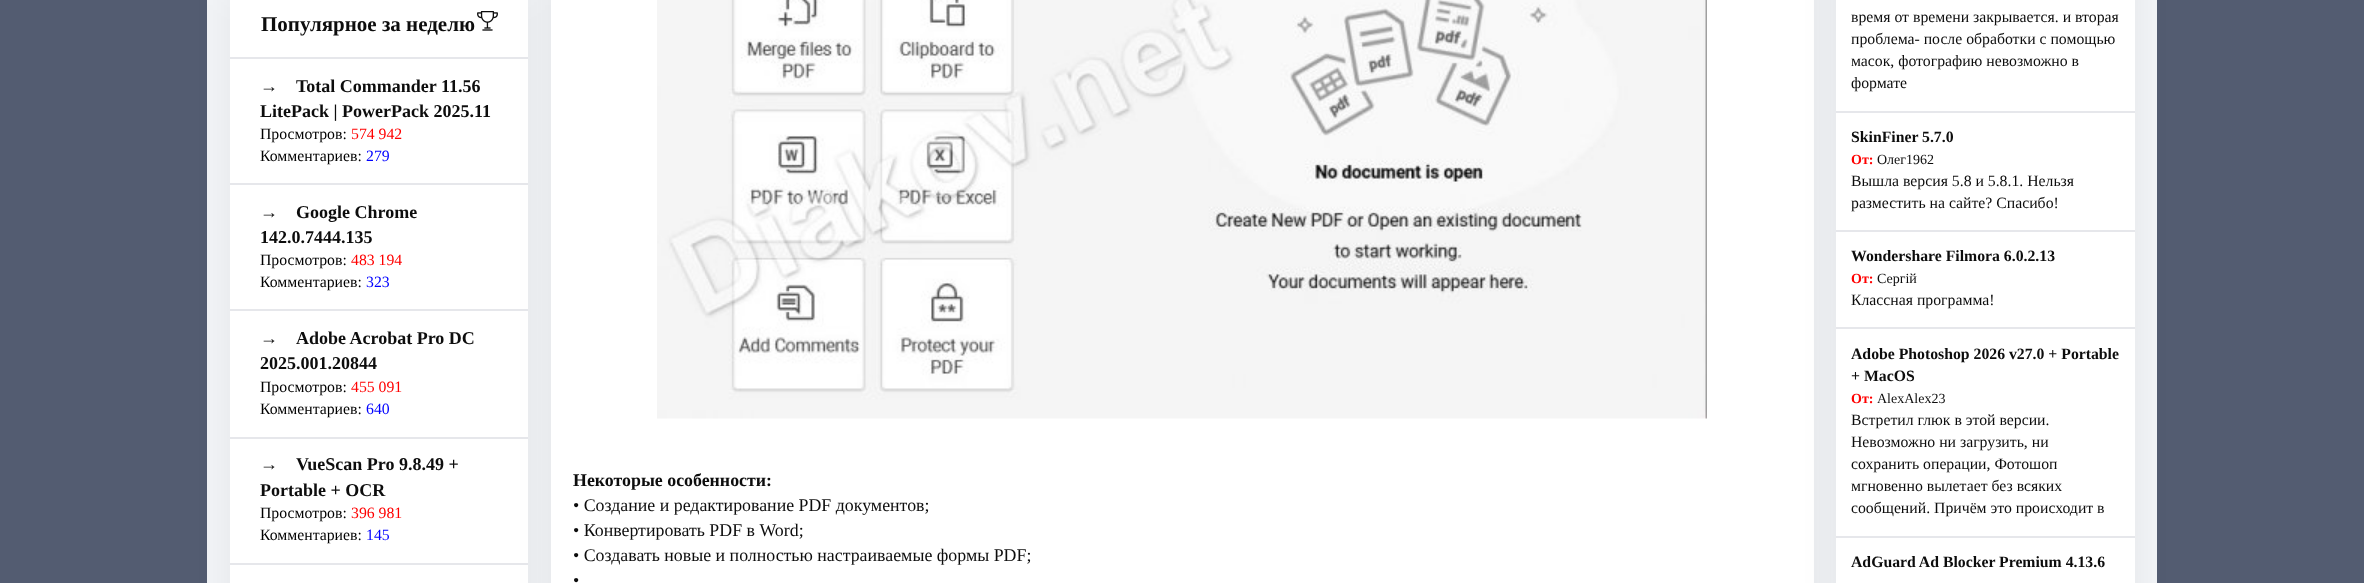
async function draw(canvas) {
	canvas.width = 2364;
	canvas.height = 583;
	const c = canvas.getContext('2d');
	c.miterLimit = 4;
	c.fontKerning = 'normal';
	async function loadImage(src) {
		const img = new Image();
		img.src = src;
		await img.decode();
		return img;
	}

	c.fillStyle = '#535c71';
	c.fillRect(0, 0, 2364, 583);
	c.fillStyle = '#f2f4f7';
	c.fillRect(207, 0, 1950, 583);
	c.fillStyle = '#0000000f';
	c.filter = 'blur(18px)';
	c.beginPath();
	c.rect(230, -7, 298, 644);
	c.fill();
	c.filter = 'none';
	c.fillStyle = '#fff';
	c.fillRect(230, 0, 298, 183);
	c.font = 'bold 21px Liberation Serif';
	c.fillStyle = '#0d0d0d';
	c.fillText('Популярное за неделю', 261, 31);
	c.drawImage(await loadImage('img1.png'), 477, 11, 21, 20);
	c.fillStyle = '#e6e7eb';
	c.fillRect(230, 57, 298, 2);
	c.font = '18px Liberation Serif';
	c.fillStyle = '#0d0d0d';
	c.fillText('→', 260, 92);
	c.font = 'bold 18px Liberation Serif';
	c.fillText('Total Commander 11.56', 296, 92);
	c.fillText('LitePack | PowerPack 2025.11', 260, 117);
	c.font = '15.75px Liberation Serif';
	c.fillStyle = '#000';
	c.fillText('Просмотров:', 260, 139);
	c.fillStyle = '#f00';
	c.fillText('574 942', 351, 139);
	c.fillStyle = '#000';
	c.fillText('Комментариев:', 260, 161);
	c.fillStyle = '#00f';
	c.fillText('279', 366, 161);
	c.fillStyle = '#fff';
	c.fillRect(230, 185, 298, 124);
	c.fillStyle = '#e6e7eb';
	c.fillRect(230, 183, 298, 2);
	c.font = '18px Liberation Serif';
	c.fillStyle = '#0d0d0d';
	c.fillText('→', 260, 218);
	c.font = 'bold 18px Liberation Serif';
	c.fillText('Google Chrome', 296, 218);
	c.fillText('142.0.7444.135', 260, 243);
	c.font = '15.75px Liberation Serif';
	c.fillStyle = '#000';
	c.fillText('Просмотров:', 260, 265);
	c.fillStyle = '#f00';
	c.fillText('483 194', 351, 265);
	c.fillStyle = '#000';
	c.fillText('Комментариев:', 260, 287);
	c.fillStyle = '#00f';
	c.fillText('323', 366, 287);
	c.fillStyle = '#fff';
	c.fillRect(230, 311, 298, 126);
	c.fillStyle = '#e6e7eb';
	c.fillRect(230, 309, 298, 2);
	c.font = '18px Liberation Serif';
	c.fillStyle = '#0d0d0d';
	c.fillText('→', 260, 344);
	c.font = 'bold 18px Liberation Serif';
	c.fillText('Adobe Acrobat Pro DC', 296, 344);
	c.fillText('2025.001.20844', 260, 369);
	c.font = '15.75px Liberation Serif';
	c.fillStyle = '#000';
	c.fillText('Просмотров:', 260, 392);
	c.fillStyle = '#f00';
	c.fillText('455 091', 351, 392);
	c.fillStyle = '#000';
	c.fillText('Комментариев:', 260, 414);
	c.fillStyle = '#00f';
	c.fillText('640', 366, 414);
	c.fillStyle = '#fff';
	c.fillRect(230, 439, 298, 124);
	c.fillStyle = '#e6e7eb';
	c.fillRect(230, 437, 298, 2);
	c.font = '18px Liberation Serif';
	c.fillStyle = '#0d0d0d';
	c.fillText('→', 260, 470);
	c.font = 'bold 18px Liberation Serif';
	c.fillText('VueScan Pro 9.8.49 +', 296, 470);
	c.fillText('Portable + OCR', 260, 496);
	c.font = '15.75px Liberation Serif';
	c.fillStyle = '#000';
	c.fillText('Просмотров:', 260, 518);
	c.fillStyle = '#f00';
	c.fillText('396 981', 351, 518);
	c.fillStyle = '#000';
	c.fillText('Комментариев:', 260, 540);
	c.fillStyle = '#00f';
	c.fillText('145', 366, 540);
	c.fillStyle = '#fff';
	c.fillRect(230, 565, 298, 18);
	c.fillStyle = '#e6e7eb';
	c.fillRect(230, 563, 298, 2);
	c.fillStyle = '#0000000f';
	c.filter = 'blur(18px)';
	c.beginPath();
	c.rect(551, -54, 1263, 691);
	c.fill();
	c.filter = 'none';
	c.fillStyle = '#fff';
	c.fillRect(551, 0, 1263, 583);
	c.drawImage(await loadImage('img2.png'), 657, 0, 1050, 419);
	c.font = 'bold 17.85px Liberation Serif';
	c.fillStyle = '#0d0d0d';
	c.fillText('Некоторые особенности:', 573, 486);
	c.font = '17.85px Liberation Serif';
	for (const [text, x, y] of [
		['• Создание и редактирование PDF документов;', 573, 511],
		['• Конвертировать PDF в Word;', 573, 536],
		['• Создавать новые и полностью настраиваемые формы PDF;', 573, 561],
		['•', 573, 586],
	]) {
		c.fillText(text, x, y);
	}
	c.fillStyle = '#0000000f';
	c.filter = 'blur(18px)';
	c.beginPath();
	c.rect(1836, -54, 299, 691);
	c.fill();
	c.filter = 'none';
	c.fillStyle = '#fff';
	c.fillRect(1836, 0, 299, 111);
	c.font = '15.75px Liberation Serif';
	c.fillStyle = '#0d0d0d';
	for (const [text, x, y] of [
		['время от времени закрывается. и вторая', 1851, 22],
		['проблема- после обработки с помощью', 1851, 44],
		['масок, фотографию невозможно в', 1851, 66],
		['формате', 1851, 88],
	]) {
		c.fillText(text, x, y);
	}
	c.fillStyle = '#fff';
	c.fillRect(1836, 113, 299, 117);
	c.fillStyle = '#e6e7eb';
	c.fillRect(1836, 111, 299, 2);
	c.font = 'bold 15.75px Liberation Serif';
	c.fillStyle = '#0d0d0d';
	c.fillText('SkinFiner 5.7.0', 1851, 142);
	c.font = 'bold 14px Liberation Serif';
	c.fillStyle = '#f00';
	c.fillText('От:', 1851, 164);
	c.font = '14px Liberation Serif';
	c.fillStyle = '#0d0d0d';
	c.fillText('Олег1962', 1877, 164);
	c.font = '15.75px Liberation Serif';
	c.fillText('Вышла версия 5.8 и 5.8.1. Нельзя', 1851, 186);
	c.fillText('разместить на сайте? Спасибо!', 1851, 208);
	c.fillStyle = '#fff';
	c.fillRect(1836, 232, 299, 95);
	c.fillStyle = '#e6e7eb';
	c.fillRect(1836, 230, 299, 2);
	c.font = 'bold 15.75px Liberation Serif';
	c.fillStyle = '#0d0d0d';
	c.fillText('Wondershare Filmora 6.0.2.13', 1851, 261);
	c.font = 'bold 14px Liberation Serif';
	c.fillStyle = '#f00';
	c.fillText('От:', 1851, 283);
	c.font = '14px Liberation Serif';
	c.fillStyle = '#0d0d0d';
	c.fillText('Сергій', 1877, 283);
	c.font = '15.75px Liberation Serif';
	c.fillText('Классная программа!', 1851, 305);
	c.fillStyle = '#fff';
	c.fillRect(1836, 329, 299, 207);
	c.fillStyle = '#e6e7eb';
	c.fillRect(1836, 327, 299, 2);
	c.font = 'bold 15.75px Liberation Serif';
	c.fillStyle = '#0d0d0d';
	c.fillText('Adobe Photoshop 2026 v27.0 + Portable', 1851, 359);
	c.fillText('+ MacOS', 1851, 381);
	c.font = 'bold 14px Liberation Serif';
	c.fillStyle = '#f00';
	c.fillText('От:', 1851, 403);
	c.font = '14px Liberation Serif';
	c.fillStyle = '#0d0d0d';
	c.fillText('AlexAlex23', 1877, 403);
	c.font = '15.75px Liberation Serif';
	for (const [text, x, y] of [
		['Встретил глюк в этой версии.', 1851, 425],
		['Невозможно ни загрузить, ни', 1851, 447],
		['сохранить операции, Фотошоп', 1851, 469],
		['мгновенно вылетает без всяких', 1851, 491],
		['сообщений. Причём это происходит в', 1851, 513],
	]) {
		c.fillText(text, x, y);
	}
	c.fillStyle = '#fff';
	c.fillRect(1836, 538, 299, 45);
	c.fillStyle = '#e6e7eb';
	c.fillRect(1836, 536, 299, 2);
	c.font = 'bold 15.75px Liberation Serif';
	c.fillStyle = '#0d0d0d';
	c.fillText('AdGuard Ad Blocker Premium 4.13.6', 1851, 567);
}

draw(document.querySelector('canvas'));
